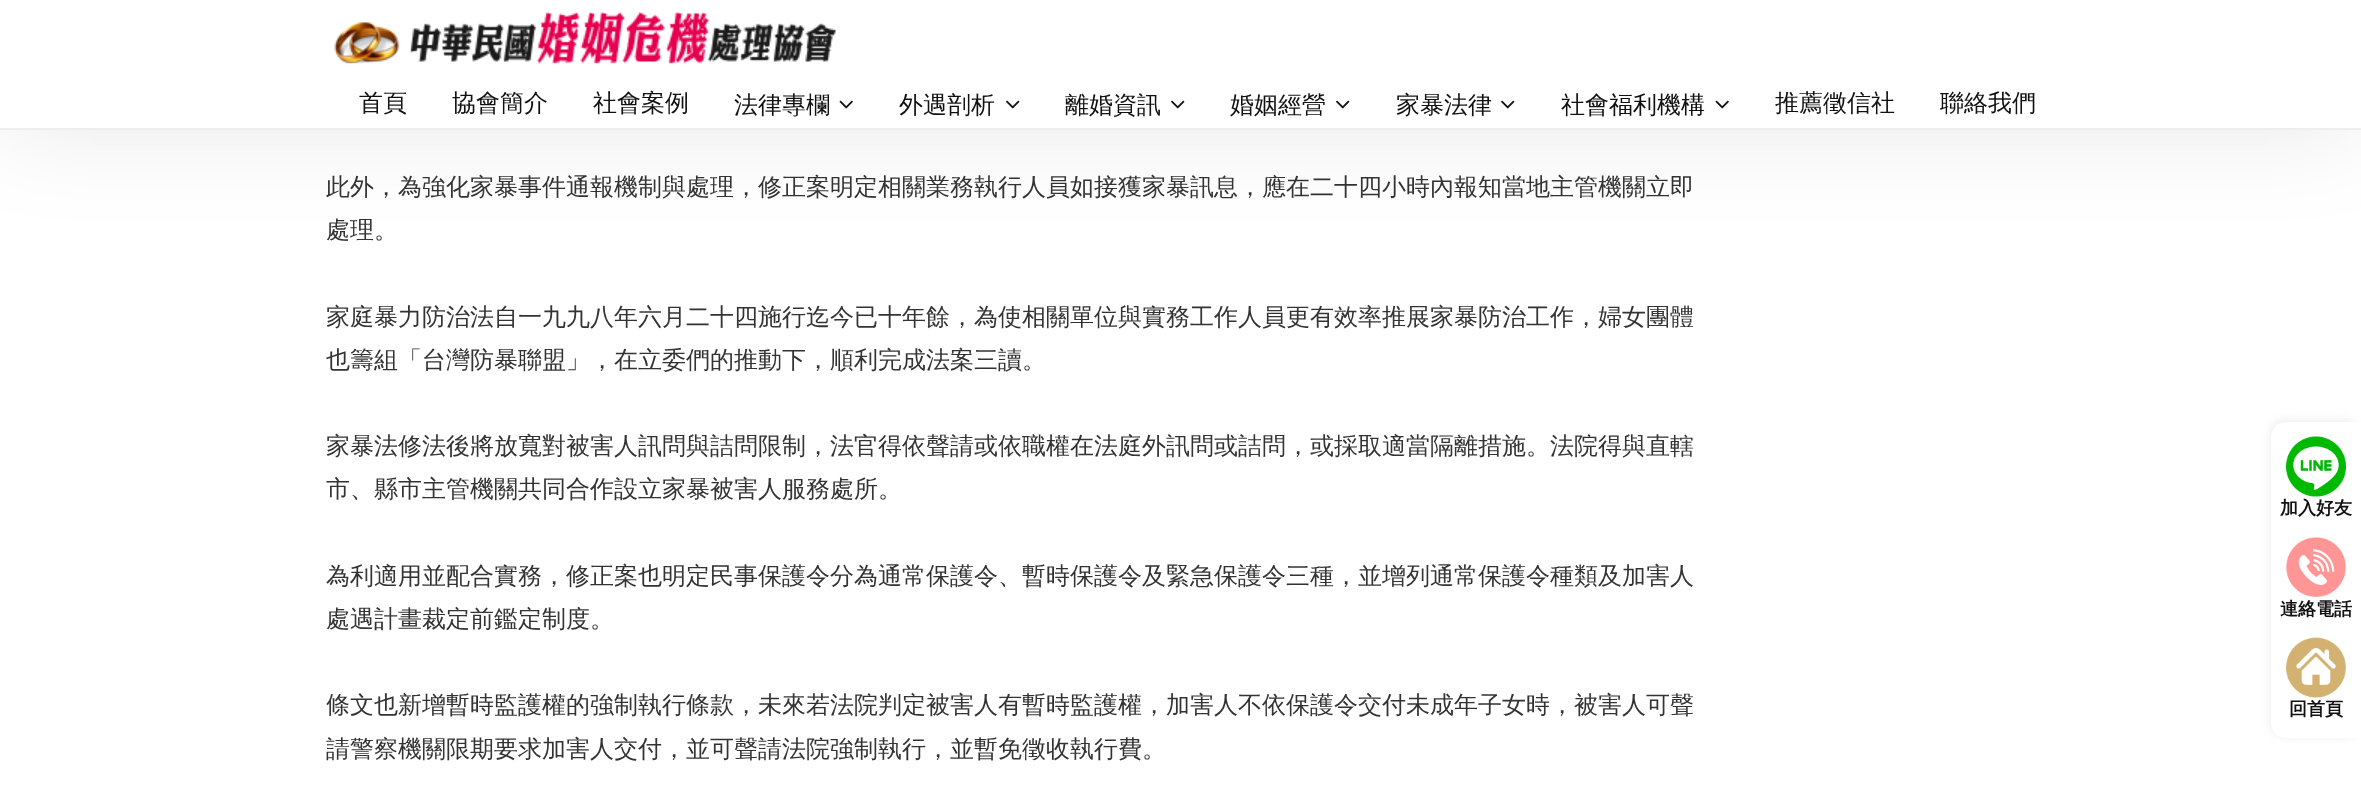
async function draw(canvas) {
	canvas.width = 2361;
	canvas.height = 812;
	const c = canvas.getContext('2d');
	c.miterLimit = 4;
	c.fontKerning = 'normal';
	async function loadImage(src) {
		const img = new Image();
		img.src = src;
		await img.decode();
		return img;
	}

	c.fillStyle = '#fff';
	c.fillRect(0, 0, 2361, 812);
	c.fillStyle = '#00000017';
	c.filter = 'blur(49px)';
	c.beginPath();
	c.rect(0, 0, 2361, 129);
	c.fill();
	c.filter = 'none';
	c.fillStyle = '#fff';
	c.fillRect(0, 0, 2361, 128);
	c.fillStyle = '#eee';
	c.fillRect(0, 128, 2361, 2);
	c.drawImage(await loadImage('img1.png'), 334, 11, 503, 54);
	c.font = '500 24px WenQuanYi Zen Hei';
	c.fillStyle = '#111';
	for (const [text, x, y] of [
		['首頁', 359, 111],
		['協會簡介', 452, 111],
		['社會案例', 593, 111],
		['法律專欄', 734, 113],
	]) {
		c.fillText(text, x, y);
	}
	c.drawImage(await loadImage('img2.png'), 839, 100, 14, 9);
	c.fillText('外遇剖析', 899, 113);
	c.drawImage(await loadImage('img3.png'), 1006, 100, 14, 9);
	c.fillText('離婚資訊', 1065, 113);
	c.drawImage(await loadImage('img3.png'), 1171, 100, 14, 9);
	c.fillText('婚姻經營', 1230, 113);
	c.drawImage(await loadImage('img3.png'), 1336, 100, 14, 9);
	c.fillText('家暴法律', 1396, 113);
	c.drawImage(await loadImage('img3.png'), 1501, 100, 14, 9);
	c.fillText('社會福利機構', 1561, 113);
	c.drawImage(await loadImage('img2.png'), 1715, 100, 14, 9);
	c.fillText('推薦徵信社', 1775, 111);
	c.fillText('聯絡我們', 1940, 111);
	c.fillStyle = '#333';
	for (const [text, x, y] of [
		['此外，為強化家暴事件通報機制與處理，修正案明定相關業務執行人員如接獲家暴訊息，應在二十四小時內報知當地主管機關立即', 326, 195],
		['處理。', 326, 238],
		['家庭暴力防治法自一九九八年六月二十四施行迄今已十年餘，為使相關單位與實務工作人員更有效率推展家暴防治工作，婦女團體', 326, 325],
		['也籌組「台灣防暴聯盟」，在立委們的推動下，順利完成法案三讀。', 326, 368],
		['家暴法修法後將放寬對被害人訊問與詰問限制，法官得依聲請或依職權在法庭外訊問或詰問，或採取適當隔離措施。法院得與直轄', 326, 454],
		['市、縣市主管機關共同合作設立家暴被害人服務處所。', 326, 497],
		['為利適用並配合實務，修正案也明定民事保護令分為通常保護令、暫時保護令及緊急保護令三種，並增列通常保護令種類及加害人', 326, 584],
		['處遇計畫裁定前鑑定制度。', 326, 627],
		['條文也新增暫時監護權的強制執行條款，未來若法院判定被害人有暫時監護權，加害人不依保護令交付未成年子女時，被害人可聲', 326, 713],
		['請警察機關限期要求加害人交付，並可聲請法院強制執行，並暫免徵收執行費。', 326, 757],
	]) {
		c.fillText(text, x, y);
	}
	c.fillStyle = '#ededed';
	c.filter = 'blur(4px)';
	c.beginPath();
	c.roundRect(2270, 420, 90, 317, 15);
	c.fill();
	c.filter = 'none';
	c.fillStyle = '#fff';
	c.beginPath();
	c.roundRect(2271, 422, 90, 316, [15, 0, 0, 15]);
	c.fill();
	c.drawImage(await loadImage('img4.png'), 2286, 436, 60, 61);
	c.font = 'bold 18px WenQuanYi Zen Hei';
	c.fillStyle = '#111';
	c.fillText('加入好友', 2280, 514);
	c.drawImage(await loadImage('img5.png'), 2286, 537, 60, 60);
	c.fillText('連絡電話', 2280, 615);
	c.drawImage(await loadImage('img6.png'), 2286, 637, 60, 61);
	c.fillText('回首頁', 2289, 715);
}

draw(document.querySelector('canvas'));
